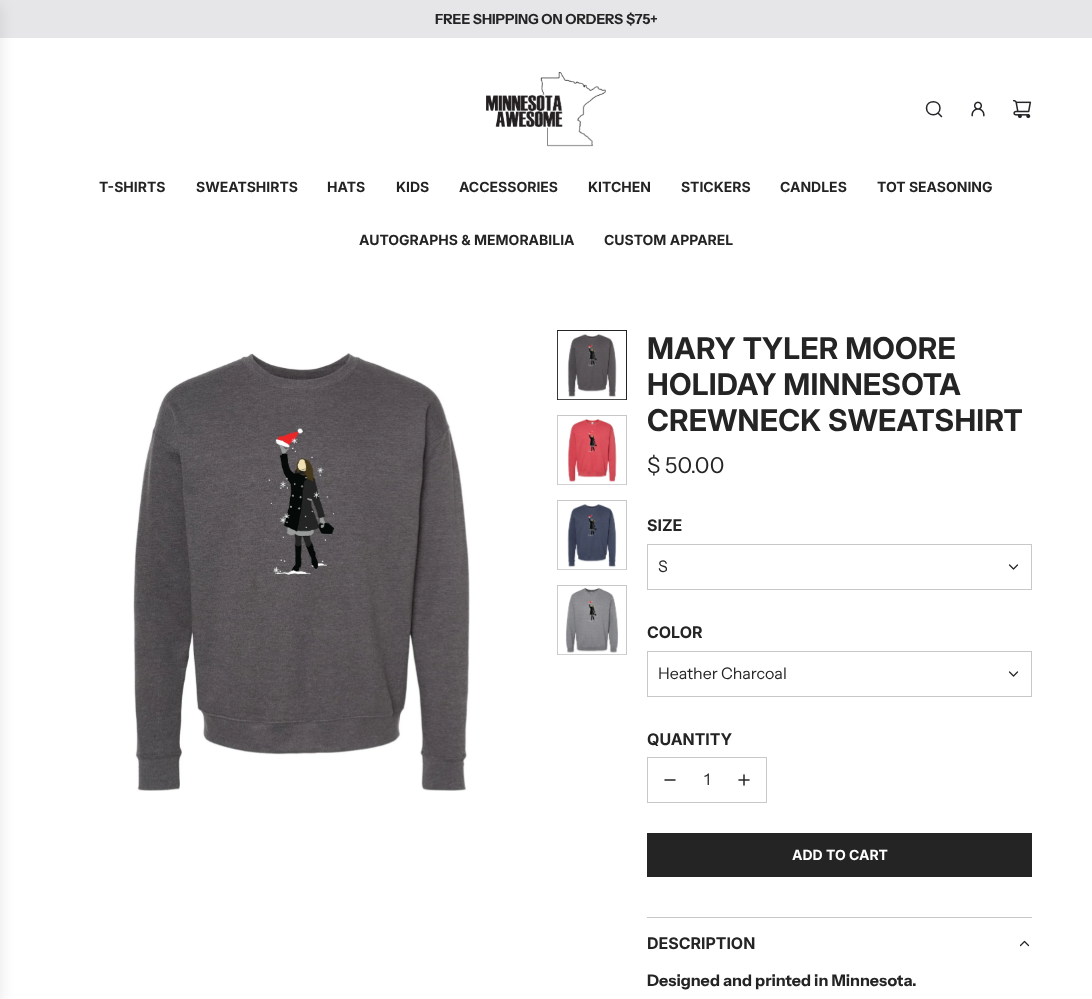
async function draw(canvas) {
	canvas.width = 1092;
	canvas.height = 999;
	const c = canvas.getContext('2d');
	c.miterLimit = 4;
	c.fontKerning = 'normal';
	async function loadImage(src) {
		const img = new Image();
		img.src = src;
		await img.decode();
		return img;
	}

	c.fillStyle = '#fff';
	c.fillRect(0, 0, 1092, 999);
	c.fillStyle = '#e6e5e7';
	c.fillRect(0, 0, 1092, 38);
	c.font = 'bold 14px Instrument Sans';
	c.fillStyle = '#242424';
	c.fillText('FREE SHIPPING ON ORDERS $75+', 435, 24);
	c.fillStyle = '#0000001a';
	c.filter = 'blur(7.5px)';
	c.beginPath();
	c.rect(-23, 5, 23, 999);
	c.fill();
	c.filter = 'none';
	c.drawImage(await loadImage('img1.png'), 486, 72, 120, 75);
	c.beginPath();
	c.moveTo(938, 113);
	c.lineTo(941.5, 116.5);
	c.moveTo(926.5, 108);
	c.bezierCurveTo(926.5, 117, 940, 117, 940, 108);
	c.bezierCurveTo(940, 99.5, 926.5, 99.5, 926.5, 108);
	c.closePath();
	c.strokeStyle = '#262428';
	c.lineWidth = 1.5;
	c.lineCap = 'round';
	c.lineJoin = 'round';
	c.stroke();
	c.drawImage(await loadImage('img2.png'), 971, 101, 14, 16);
	c.drawImage(await loadImage('img3.png'), 1012, 99, 20, 20);
	c.font = 'bold 14px "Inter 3"';
	c.fillStyle = '#242424';
	for (const [text, x, y] of [
		['T-SHIRTS', 99, 192],
		['SWEATSHIRTS', 196, 192],
		['HATS', 327, 192],
		['KIDS', 396, 192],
		['ACCESSORIES', 459, 192],
		['KITCHEN', 588, 192],
		['STICKERS', 681, 192],
		['CANDLES', 780, 192],
		['TOT SEASONING', 877, 192],
		['AUTOGRAPHS & MEMORABILIA', 359, 245],
		['CUSTOM APPAREL', 604, 245],
	]) {
		c.fillText(text, x, y);
	}
	c.drawImage(await loadImage('img4.png'), 133, 353, 337, 438);
	c.strokeStyle = '#242424';
	c.lineWidth = 1;
	c.lineJoin = 'miter';
	c.strokeRect(557.5, 330.5, 69, 69);
	c.drawImage(await loadImage('img5.png'), 557, 331, 69, 69);
	c.strokeStyle = '#c8c8c8';
	c.strokeRect(557.5, 415.5, 69, 69);
	c.drawImage(await loadImage('img6.png'), 557, 416, 69, 69);
	c.strokeRect(557.5, 500.5, 69, 69);
	c.drawImage(await loadImage('img7.png'), 557, 501, 69, 69);
	c.strokeRect(557.5, 585.5, 69, 69);
	c.drawImage(await loadImage('img8.png'), 557, 586, 69, 69);
	c.letterSpacing = '0.25px';
	c.font = 'bold 30px Inter';
	for (const [text, x, y] of [
		['MARY TYLER MOORE', 647, 359],
		['HOLIDAY MINNESOTA', 647, 395],
		['CREWNECK SWEATSHIRT', 647, 431],
	]) {
		c.fillText(text, x, y);
	}
	c.letterSpacing = '0px';
	c.font = '22px Instrument Sans';
	c.fillText('$ 50.00', 647, 473);
	c.font = 'bold 16px "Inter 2"';
	c.fillText('SIZE', 647, 531);
	c.strokeRect(647.5, 544.5, 384, 45);
	c.font = '16px Instrument Sans';
	c.fillText('S', 658, 572);
	c.beginPath();
	c.moveTo(1009.5, 565);
	c.lineTo(1013.5, 569);
	c.lineTo(1017.5, 565);
	c.strokeStyle = '#242424';
	c.lineWidth = 1.2;
	c.lineJoin = 'round';
	c.stroke();
	c.font = 'bold 16px "Inter 2"';
	c.fillText('COLOR', 647, 638);
	c.strokeStyle = '#c8c8c8';
	c.lineWidth = 1;
	c.lineJoin = 'miter';
	c.strokeRect(647.5, 651.5, 384, 45);
	c.font = '16px Instrument Sans';
	c.fillText('Heather Charcoal', 658, 679);
	c.beginPath();
	c.moveTo(1009.5, 672);
	c.lineTo(1013.5, 676);
	c.lineTo(1017.5, 672);
	c.strokeStyle = '#242424';
	c.lineWidth = 1.2;
	c.lineJoin = 'round';
	c.stroke();
	c.font = 'bold 16px "Inter 2"';
	c.fillText('QUANTITY', 647, 745);
	c.strokeStyle = '#c8c8c8';
	c.lineWidth = 1;
	c.lineJoin = 'miter';
	c.strokeRect(647.5, 757.5, 119, 45);
	c.beginPath();
	c.moveTo(665, 780);
	c.lineTo(675, 780);
	c.strokeStyle = '#242424';
	c.lineWidth = 1.5;
	c.lineJoin = 'round';
	c.stroke();
	c.font = '16px Instrument Sans';
	c.fillText('1', 704, 785);
	c.drawImage(await loadImage('img9.png'), 738, 774, 12, 12);
	c.fillRect(647, 833, 385, 44);
	c.font = 'bold 14px "Inter 3"';
	c.fillStyle = '#fff';
	c.fillText('ADD TO CART', 792, 860);
	c.fillStyle = '#c8c8c8';
	c.fillRect(647, 917, 385, 1);
	c.font = 'bold 16px "Inter 2"';
	c.fillStyle = '#242424';
	c.fillText('DESCRIPTION', 647, 949);
	c.beginPath();
	c.moveTo(1020.5, 945.5);
	c.lineTo(1024.5, 941.5);
	c.lineTo(1028.5, 945.5);
	c.lineWidth = 1.2;
	c.stroke();
	c.font = 'bold 16px Instrument Sans';
	c.fillText('Designed and printed in Minnesota.', 647, 986);
}

draw(document.querySelector('canvas'));
